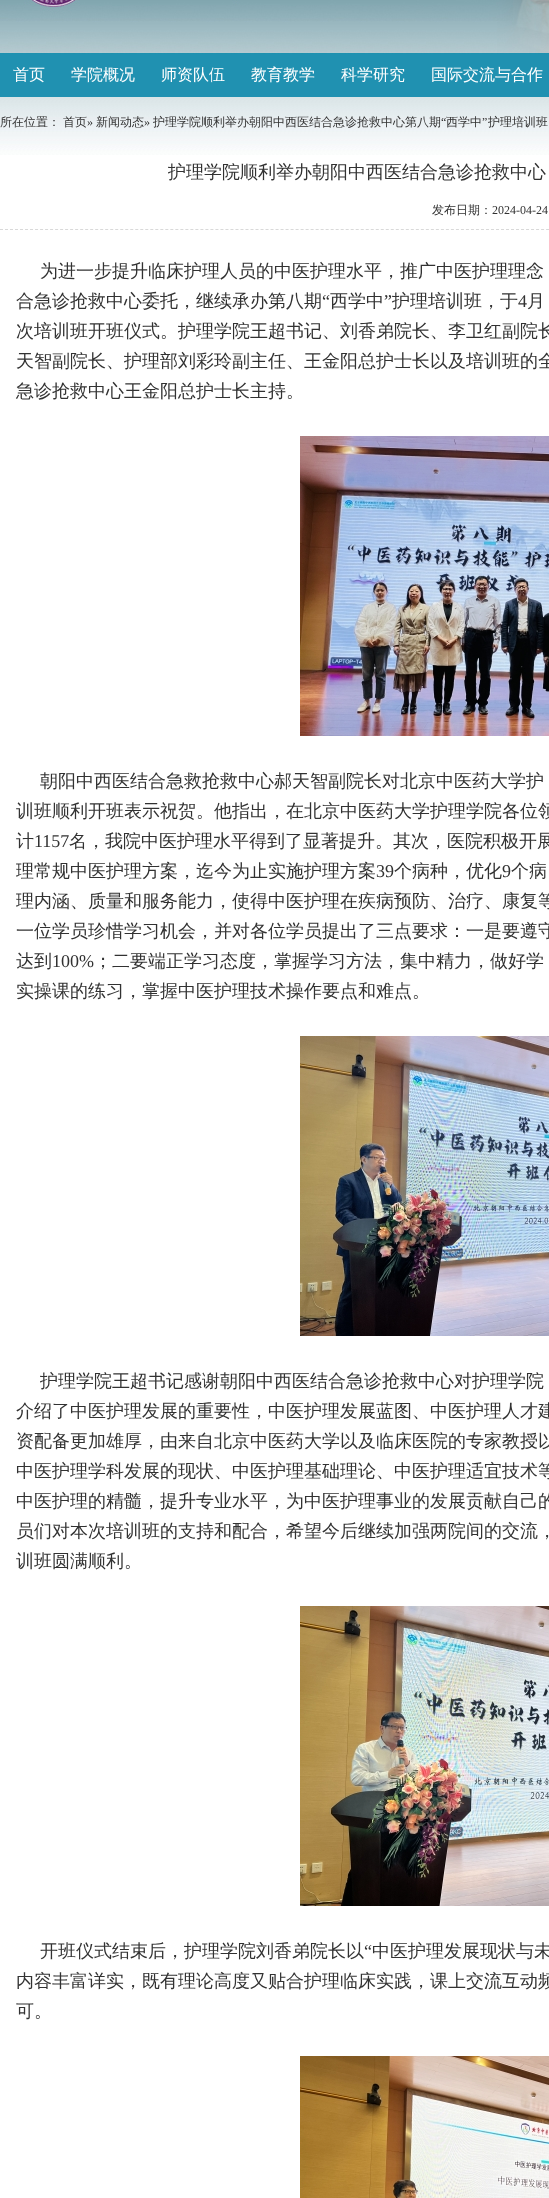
async function draw(canvas) {
	canvas.width = 549;
	canvas.height = 2198;
	const c = canvas.getContext('2d');
	c.miterLimit = 4;
	c.fontKerning = 'normal';
	async function loadImage(src) {
		const img = new Image();
		img.src = src;
		await img.decode();
		return img;
	}

	c.fillStyle = '#fff';
	c.fillRect(0, 0, 549, 2198);
	c.drawImage(await loadImage('img1.png'), 0, 21, 549, 76);
	c.drawImage(await loadImage('img2.png'), 497, 0, 52, 53);
	c.drawImage(await loadImage('img3.png'), 0, 0, 513, 21);
	c.font = '500 16px WenQuanYi Zen Hei';
	for (const [text, x, y] of [
		['首页', 13, 80],
		['学院概况', 71, 80],
		['师资队伍', 161, 80],
		['教育教学', 251, 80],
		['科学研究', 341, 80],
		['国际交流与合作', 431, 80],
	]) {
		c.fillText(text, x, y);
	}
	c.drawImage(await loadImage('img4.png'), 0, 97, 549, 58);
	c.font = '500 12px WenQuanYi Zen Hei';
	c.fillStyle = '#323232';
	for (const [text, x, y] of [
		['所在位置：', 0, 126],
		['首页', 63, 126],
		['新闻动态', 96, 126],
		['护理学院顺利举办朝阳中西医结合急诊抢救中心第八期', 153, 126],
	]) {
		c.fillText(text, x, y);
	}
	c.font = '12px Liberation Serif';
	c.fillText('“', 441, 126);
	c.font = '500 12px WenQuanYi Zen Hei';
	c.fillText('西学中', 446, 126);
	c.font = '12px Liberation Serif';
	c.fillText('”', 482, 126);
	c.font = '500 12px WenQuanYi Zen Hei';
	c.fillText('护理培训班', 488, 126);
	c.font = '12px Liberation Serif';
	c.fillText('»', 87, 126);
	c.fillText('»', 144, 126);
	c.font = '500 18px WenQuanYi Zen Hei';
	c.fillText('护理学院顺利举办朝阳中西医结合急诊抢救中心', 168, 178);
	c.beginPath();
	c.moveTo(0, 229.5);
	c.lineTo(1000, 229.5);
	c.strokeStyle = '#d9d9d9';
	c.setLineDash([3, 2.01]);
	c.stroke();
	c.font = '500 12px WenQuanYi Zen Hei';
	c.fillText('发布日期：', 432, 214);
	c.font = '12px Liberation Serif';
	c.fillText('2024-04-24', 492, 214);
	c.font = '500 18px WenQuanYi Zen Hei';
	c.fillText('为进一步提升临床护理人员的中医护理水平，推广中医护理理念', 40, 277);
	c.fillText('合急诊抢救中心委托，继续承办第八期', 16, 307);
	c.font = '18px Liberation Serif';
	c.fillText('“', 322, 307);
	c.font = '500 18px WenQuanYi Zen Hei';
	c.fillText('西学中', 330, 307);
	c.font = '18px Liberation Serif';
	c.fillText('”', 384, 307);
	c.font = '500 18px WenQuanYi Zen Hei';
	c.fillText('护理培训班，于', 392, 307);
	c.font = '18px Liberation Serif';
	c.fillText('4', 518, 307);
	c.font = '500 18px WenQuanYi Zen Hei';
	for (const [text, x, y] of [
		['月', 527, 307],
		['次培训班开班仪式。护理学院王超书记、刘香弟院长、李卫红副院长', 16, 337],
		['天智副院长、护理部刘彩玲副主任、王金阳总护士长以及培训班的全', 16, 367],
		['急诊抢救中心王金阳总护士长主持。', 16, 397],
	]) {
		c.fillText(text, x, y);
	}
	c.drawImage(await loadImage('img5.png'), 300, 436, 249, 300);
	for (const [text, x, y] of [
		['朝阳中西医结合急救抢救中心郝天智副院长对北京中医药大学护', 40, 787],
		['训班顺利开班表示祝贺。他指出，在北京中医药大学护理学院各位领', 16, 817],
		['计', 16, 847],
	]) {
		c.fillText(text, x, y);
	}
	c.font = '18px Liberation Serif';
	c.fillText('1157', 34, 847);
	c.font = '500 18px WenQuanYi Zen Hei';
	c.fillText('名，我院中医护理水平得到了显著提升。其次，医院积极开展', 69, 847);
	c.fillText('理常规中医护理方案，迄今为止实施护理方案', 16, 877);
	c.font = '18px Liberation Serif';
	c.fillText('39', 376, 877);
	c.font = '500 18px WenQuanYi Zen Hei';
	c.fillText('个病种，优化', 394, 877);
	c.font = '18px Liberation Serif';
	c.fillText('9', 502, 877);
	c.font = '500 18px WenQuanYi Zen Hei';
	for (const [text, x, y] of [
		['个病', 511, 877],
		['理内涵、质量和服务能力，使得中医护理在疾病预防、治疗、康复等', 16, 907],
		['一位学员珍惜学习机会，并对各位学员提出了三点要求：一是要遵守', 16, 937],
		['达到', 16, 967],
	]) {
		c.fillText(text, x, y);
	}
	c.font = '18px Liberation Serif';
	c.fillText('100%', 52, 967);
	c.font = '500 18px WenQuanYi Zen Hei';
	c.fillText('；二要端正学习态度，掌握学习方法，集中精力，做好学', 94, 967);
	c.fillText('实操课的练习，掌握中医护理技术操作要点和难点。', 16, 997);
	c.drawImage(await loadImage('img6.png'), 300, 1036, 249, 300);
	for (const [text, x, y] of [
		['护理学院王超书记感谢朝阳中西医结合急诊抢救中心对护理学院', 40, 1387],
		['介绍了中医护理发展的重要性，中医护理发展蓝图、中医护理人才建', 16, 1417],
		['资配备更加雄厚，由来自北京中医药大学以及临床医院的专家教授以', 16, 1447],
		['中医护理学科发展的现状、中医护理基础理论、中医护理适宜技术等', 16, 1477],
		['中医护理的精髓，提升专业水平，为中医护理事业的发展贡献自己的', 16, 1507],
		['员们对本次培训班的支持和配合，希望今后继续加强两院间的交流，', 16, 1537],
		['训班圆满顺利。', 16, 1567],
	]) {
		c.fillText(text, x, y);
	}
	c.drawImage(await loadImage('img7.png'), 300, 1606, 249, 300);
	c.fillText('开班仪式结束后，护理学院刘香弟院长以', 40, 1957);
	c.font = '18px Liberation Serif';
	c.fillText('“', 364, 1957);
	c.font = '500 18px WenQuanYi Zen Hei';
	for (const [text, x, y] of [
		['中医护理发展现状与未', 372, 1957],
		['内容丰富详实，既有理论高度又贴合护理临床实践，课上交流互动频', 16, 1987],
		['可。', 16, 2017],
	]) {
		c.fillText(text, x, y);
	}
	c.drawImage(await loadImage('img8.png'), 300, 2056, 249, 142);
}

draw(document.querySelector('canvas'));
